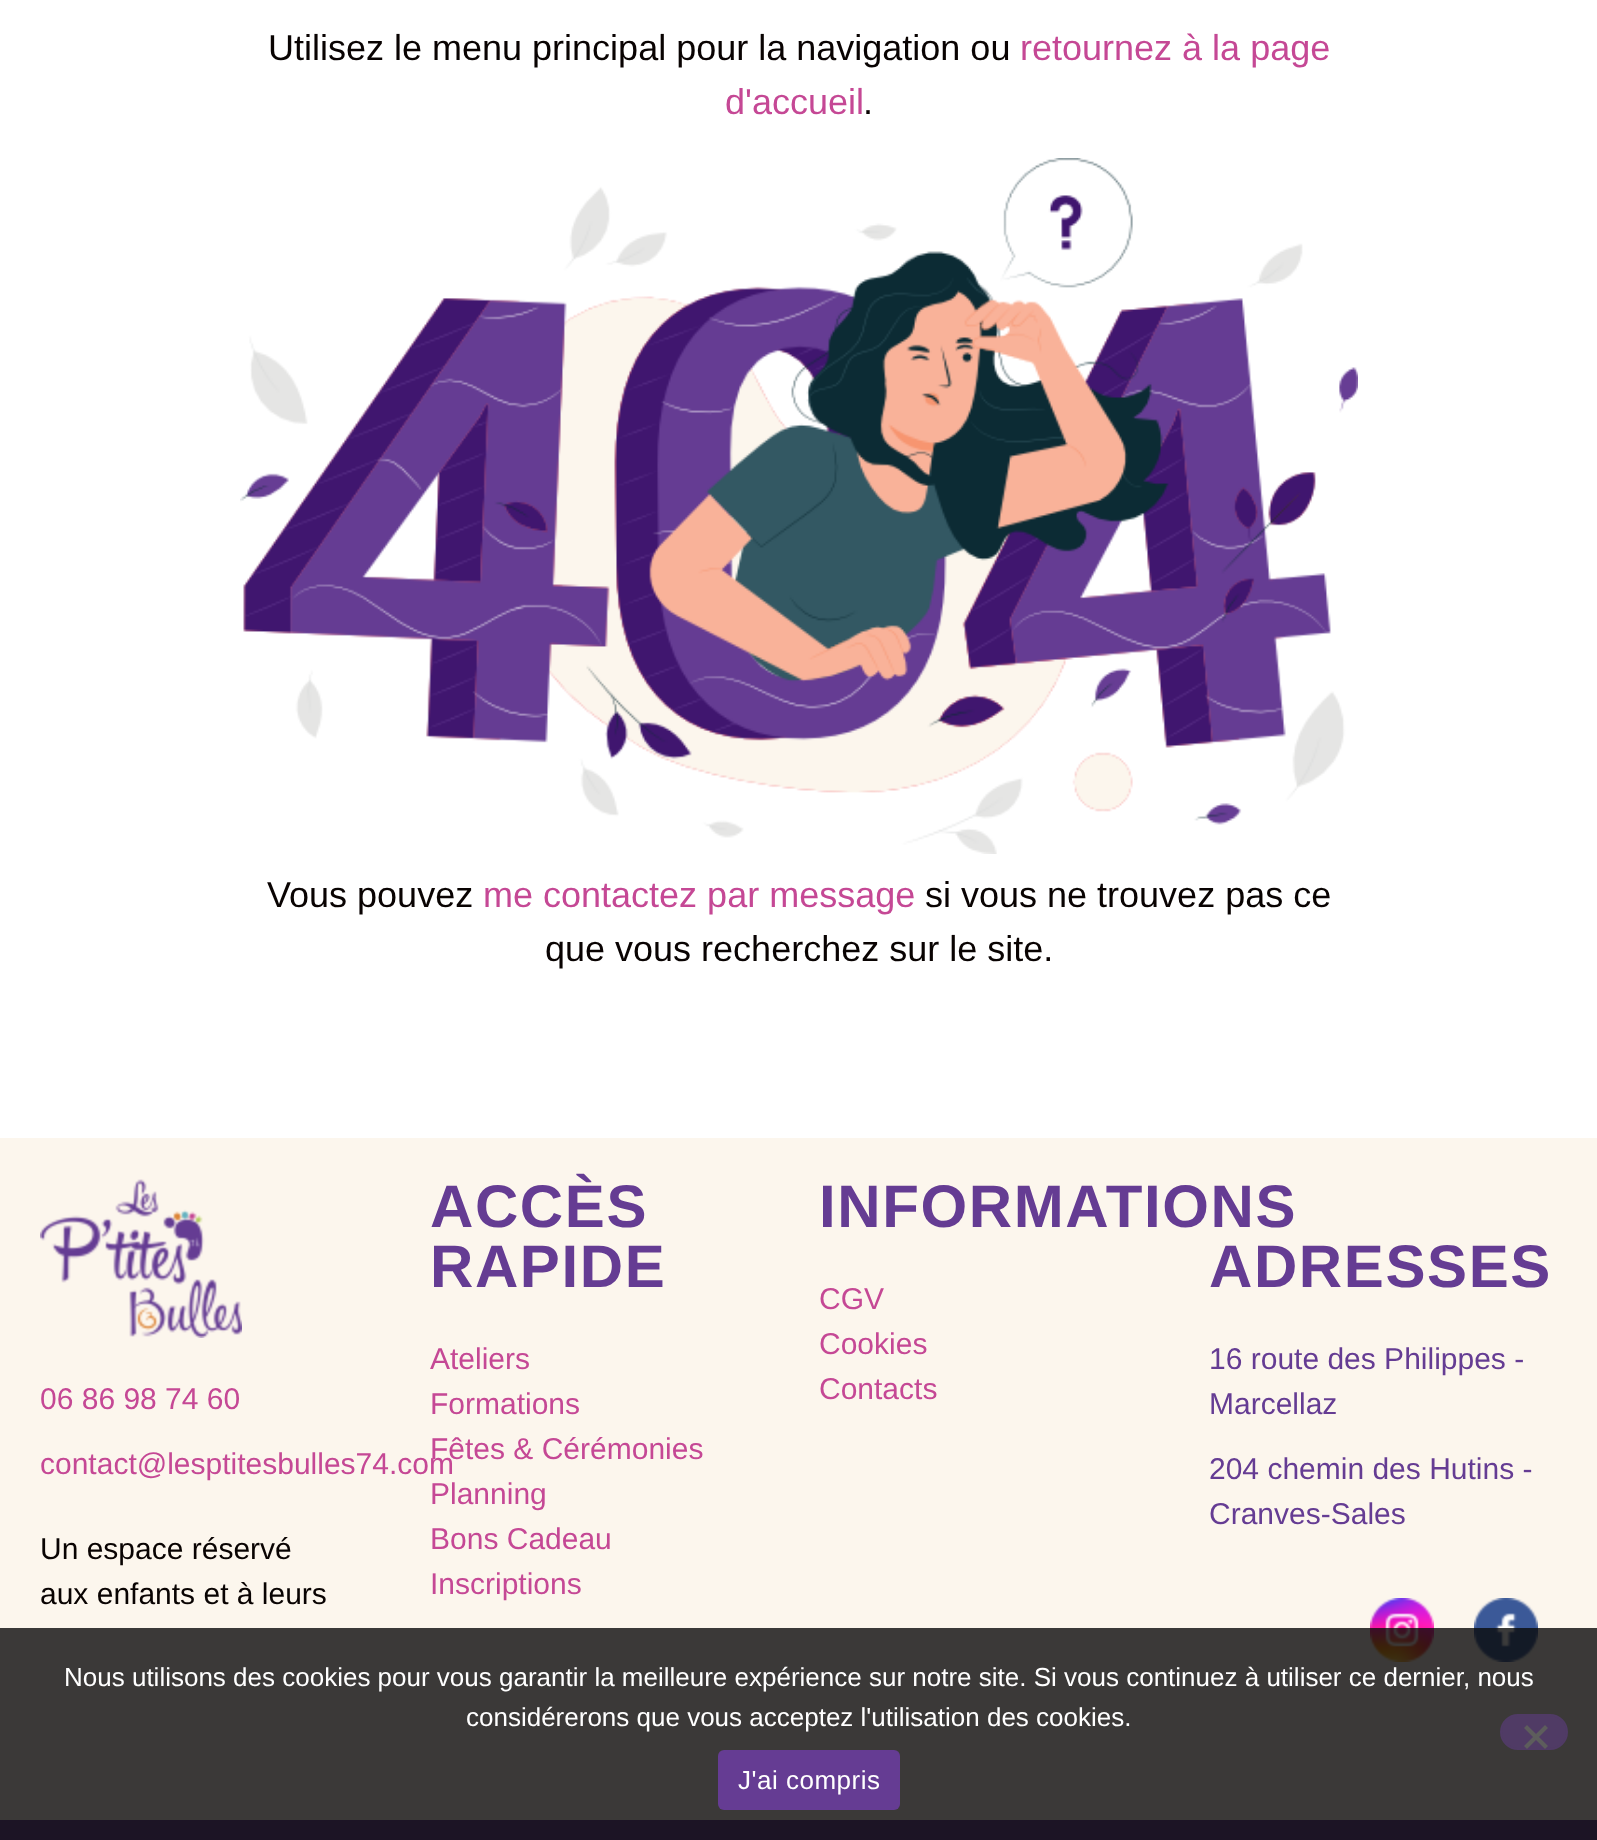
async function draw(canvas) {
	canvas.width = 1597;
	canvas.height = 1840;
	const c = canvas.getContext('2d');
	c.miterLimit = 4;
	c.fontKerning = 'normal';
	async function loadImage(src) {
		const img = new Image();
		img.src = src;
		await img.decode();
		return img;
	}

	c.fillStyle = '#fff';
	c.fillRect(0, 0, 1597, 1840);
	c.font = '36px Liberation Sans';
	c.fillStyle = '#090302';
	c.fillText('Utilisez le menu principal pour la navigation ou', 268, 60);
	c.fillStyle = '#c54895';
	c.fillText('retournez à la page', 1020, 60);
	c.fillText('d\'accueil', 725, 114);
	c.fillStyle = '#090302';
	c.fillText('.', 863, 114);
	c.drawImage(await loadImage('img1.png'), 240, 158, 1118, 696);
	c.fillText('Vous pouvez', 267, 907);
	c.fillStyle = '#c54895';
	c.fillText('me contactez par message', 483, 907);
	c.fillStyle = '#090302';
	c.fillText('si vous ne trouvez pas ce', 925, 907);
	c.fillText('que vous recherchez sur le site.', 545, 961);
	c.fillStyle = '#fcf6ed';
	c.fillRect(0, 1138, 1597, 682);
	c.drawImage(await loadImage('img2.png'), 40, 1179, 202, 159);
	c.font = '30px Liberation Sans';
	c.fillStyle = '#c54895';
	c.fillText('06 86 98 74 60', 40, 1409);
	c.fillText('contact@lesptitesbulles74.com', 40, 1474);
	c.fillStyle = '#090302';
	c.fillText('Un espace réservé', 40, 1559);
	c.fillText('aux enfants et à leurs', 40, 1604);
	c.letterSpacing = '1.6px';
	c.font = 'bold 60px Liberation Sans';
	c.fillStyle = '#653c93';
	c.fillText('ACCÈS', 430, 1227);
	c.fillText('RAPIDE', 430, 1287);
	c.letterSpacing = '0px';
	c.font = '30px Liberation Sans';
	c.fillStyle = '#c54895';
	for (const [text, x, y] of [
		['Ateliers', 430, 1369],
		['Formations', 430, 1414],
		['Fêtes & Cérémonies', 430, 1459],
		['Planning', 430, 1504],
		['Bons Cadeau', 430, 1549],
		['Inscriptions', 430, 1594],
	]) {
		c.fillText(text, x, y);
	}
	c.letterSpacing = '1.6px';
	c.font = 'bold 60px Liberation Sans';
	c.fillStyle = '#653c93';
	c.fillText('INFORMATIONS', 819, 1227);
	c.letterSpacing = '0px';
	c.font = '30px Liberation Sans';
	c.fillStyle = '#c54895';
	for (const [text, x, y] of [
		['CGV', 819, 1309],
		['Cookies', 819, 1354],
		['Contacts', 819, 1399],
	]) {
		c.fillText(text, x, y);
	}
	c.letterSpacing = '1.6px';
	c.font = 'bold 60px Liberation Sans';
	c.fillStyle = '#653c93';
	c.fillText('ADRESSES', 1209, 1287);
	c.letterSpacing = '0px';
	c.font = '30px Liberation Sans';
	for (const [text, x, y] of [
		['16 route des Philippes -', 1209, 1369],
		['Marcellaz', 1209, 1414],
		['204 chemin des Hutins -', 1209, 1479],
		['Cranves-Sales', 1209, 1524],
	]) {
		c.fillText(text, x, y);
	}
	c.drawImage(await loadImage('img3.png'), 1370, 1598, 64, 64);
	c.drawImage(await loadImage('img4.png'), 1474, 1598, 64, 64);
	c.fillRect(0, 1820, 1597, 20);
	c.fillStyle = '#0a0a0acc';
	c.fillRect(0, 1628, 1597, 212);
	c.font = '26px Liberation Sans';
	c.fillStyle = '#fff';
	c.fillText('Nous utilisons des cookies pour vous garantir la meilleure expérience sur notre site. Si vous continuez à utiliser ce dernier, nous', 64, 1686);
	c.fillText('considérerons que vous acceptez l\'utilisation des cookies.', 466, 1726);
	c.fillStyle = '#503b65';
	c.beginPath();
	c.roundRect(1501, 1715, 66, 34, 17);
	c.fill();
	c.strokeStyle = '#503b65';
	c.lineWidth = 2;
	c.stroke();
	c.fillStyle = '#5d5d5c';
	c.beginPath();
	c.moveTo(1545, 1725);
	c.lineTo(1548, 1728);
	c.lineTo(1527, 1749);
	c.lineTo(1524, 1746);
	c.closePath();
	c.fill();
	c.beginPath();
	c.moveTo(1524, 1728);
	c.lineTo(1527, 1725);
	c.lineTo(1548, 1746);
	c.lineTo(1545, 1749);
	c.closePath();
	c.fill();
	c.fillStyle = '#653c93';
	c.beginPath();
	c.roundRect(718, 1750, 182, 60, 6);
	c.fill();
	c.letterSpacing = '0.5px';
	c.fillStyle = '#fff';
	c.fillText('J\'ai compris', 738, 1789);
}

draw(document.querySelector('canvas'));
